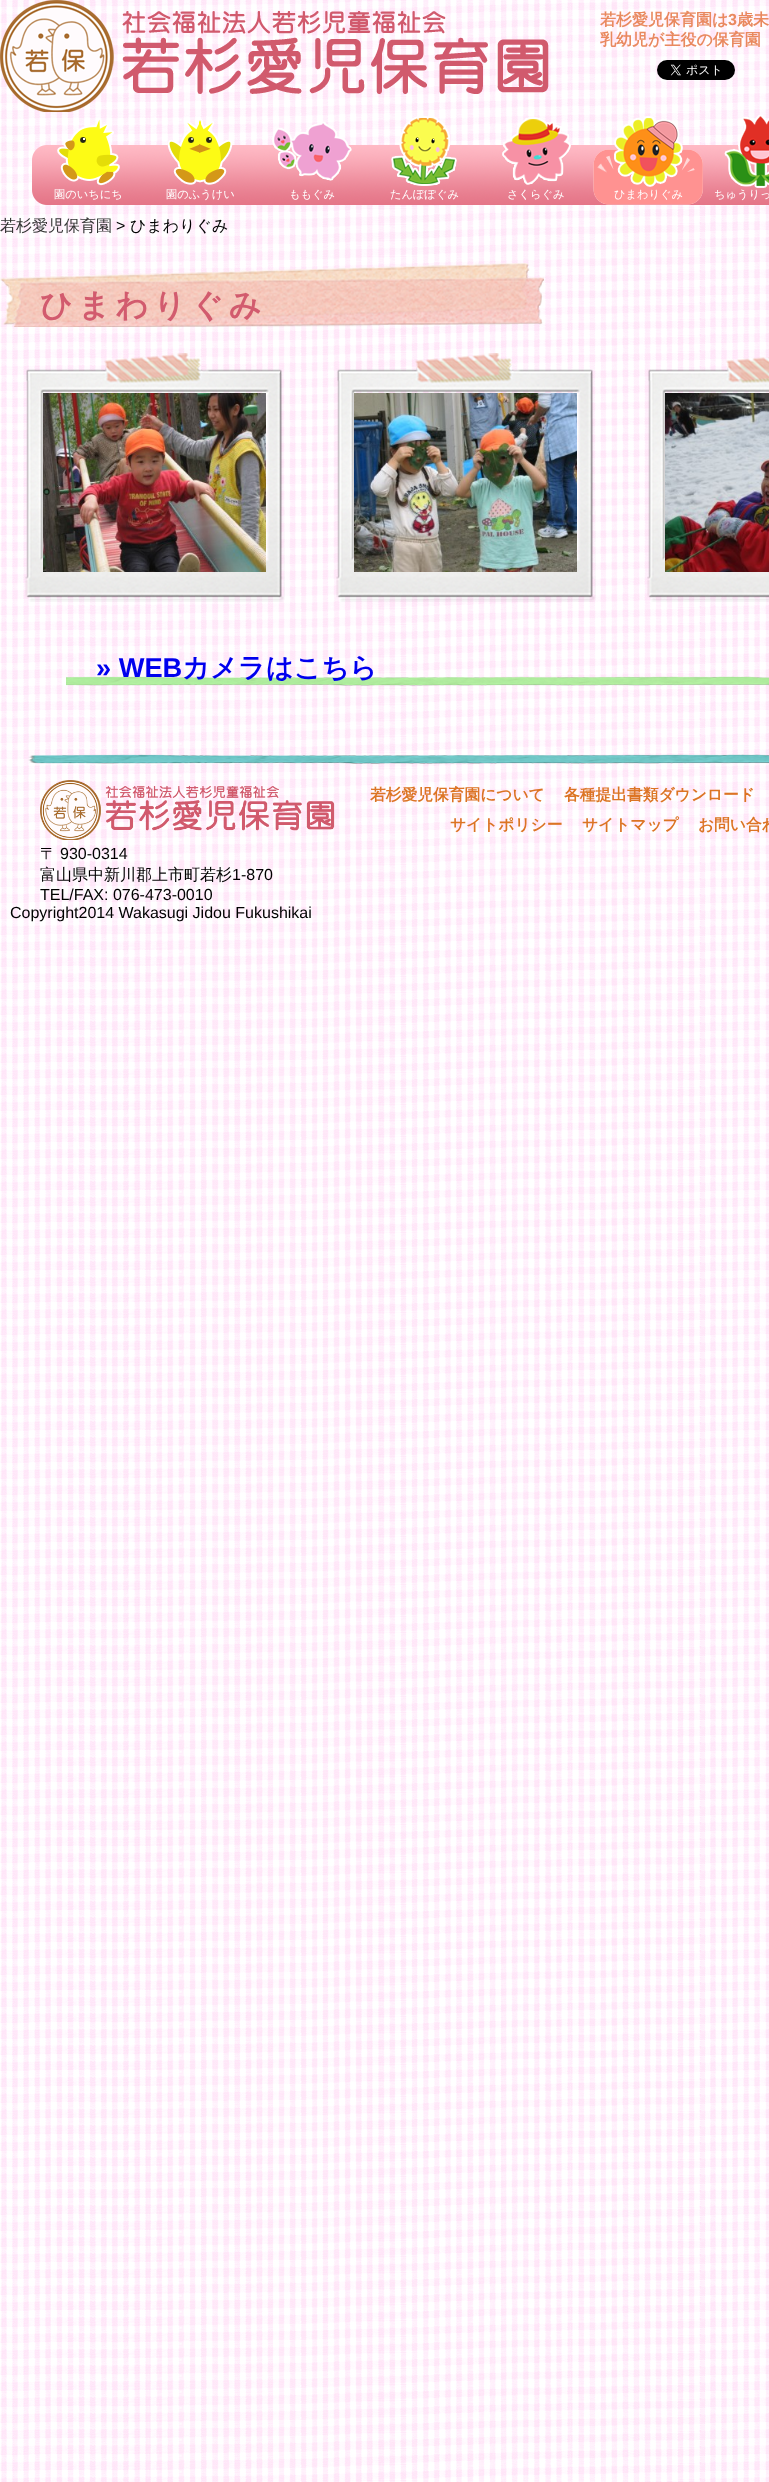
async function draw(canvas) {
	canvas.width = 769;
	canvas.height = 2482;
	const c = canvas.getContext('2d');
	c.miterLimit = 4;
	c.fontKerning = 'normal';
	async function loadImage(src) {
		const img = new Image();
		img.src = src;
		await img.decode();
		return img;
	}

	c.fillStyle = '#fff';
	c.fillRect(0, 0, 769, 2482);
	c.drawImage(await loadImage('img1.png'), 0, 0, 769, 2482);
	c.drawImage(await loadImage('img2.png'), 0, 0, 549, 112);
	c.font = 'bold 16px WenQuanYi Zen Hei';
	c.fillStyle = '#e9895f';
	c.fillText('若杉愛児保育園は', 600, 25);
	c.font = 'bold 16px Liberation Sans';
	c.fillText('3', 728, 25);
	c.font = 'bold 16px WenQuanYi Zen Hei';
	c.fillText('歳未', 737, 25);
	c.fillText('乳幼児が主役の保育園', 600, 45);
	c.drawImage(await loadImage('img3.png'), 657, 60, 78, 20);
	c.drawImage(await loadImage('img4.png'), 32, 145, 737, 60);
	c.drawImage(await loadImage('img5.png'), 57, 119, 63, 67);
	c.font = '500 11.25px WenQuanYi Zen Hei';
	c.fillStyle = '#fff';
	c.fillText('園のいちにち', 54, 198);
	c.drawImage(await loadImage('img6.png'), 167, 119, 66, 66);
	c.fillText('園のふうけい', 166, 198);
	c.drawImage(await loadImage('img7.png'), 272, 121, 80, 60);
	c.fillText('ももぐみ', 289, 198);
	c.drawImage(await loadImage('img8.png'), 391, 116, 66, 70);
	c.fillText('たんぽぽぐみ', 390, 198);
	c.drawImage(await loadImage('img9.png'), 502, 117, 69, 68);
	c.fillText('さくらぐみ', 507, 198);
	c.drawImage(await loadImage('img10.png'), 593, 149, 110, 56);
	c.drawImage(await loadImage('img11.png'), 614, 116, 69, 71);
	c.fillText('ひまわりぐみ', 614, 198);
	c.drawImage(await loadImage('img12.png'), 724, 115, 45, 73);
	c.fillText('ちゅうりっ', 714, 198);
	c.font = '500 16px WenQuanYi Zen Hei';
	c.fillStyle = '#333';
	c.fillText('若杉愛児保育園', 0, 231);
	c.font = '16px Liberation Sans';
	c.fillStyle = '#000';
	c.fillText('>', 116, 231);
	c.font = '500 16px WenQuanYi Zen Hei';
	c.fillText('ひまわりぐみ', 130, 231);
	c.drawImage(await loadImage('img13.png'), 0, 263, 544, 64);
	c.letterSpacing = '5px';
	c.font = 'bold 32px WenQuanYi Zen Hei';
	c.fillStyle = '#d25b6e';
	c.fillText('ひまわりぐみ', 40, 316);
	c.drawImage(await loadImage('img14.png'), 25, 353, 260, 249);
	c.drawImage(await loadImage('img15.png'), 336, 353, 260, 249);
	c.drawImage(await loadImage('img16.png'), 647, 357, 122, 245);
	c.drawImage(await loadImage('img17.png'), 66, 676, 703, 10);
	c.letterSpacing = '0px';
	c.font = 'bold 27.25px Liberation Sans';
	c.fillStyle = '#00e';
	c.fillText('» WEB', 96, 677);
	c.font = 'bold 27.25px WenQuanYi Zen Hei';
	c.fillText('カメラはこちら', 182, 677);
	c.drawImage(await loadImage('img18.png'), 28, 754, 741, 10);
	c.font = 'bold 15.75px WenQuanYi Zen Hei';
	c.fillStyle = '#dc7424';
	for (const [text, x, y] of [
		['若杉愛児保育園について', 370, 800],
		['各種提出書類ダウンロード', 564, 800],
		['サイトポリシー', 450, 830],
		['サイトマップ', 582, 830],
		['お問い合わ', 698, 830],
	]) {
		c.fillText(text, x, y);
	}
	c.drawImage(await loadImage('img19.png'), 40, 780, 295, 60);
	c.font = '500 16px WenQuanYi Zen Hei';
	c.fillStyle = '#000';
	c.fillText('〒', 40, 859);
	c.font = '16px Liberation Sans';
	c.fillText('930-0314', 60, 859);
	c.font = '500 16px WenQuanYi Zen Hei';
	c.fillText('富山県中新川郡上市町若杉', 40, 880);
	c.font = '16px Liberation Sans';
	for (const [text, x, y] of [
		['1-870', 232, 880],
		['TEL/FAX: 076-473-0010', 40, 900],
		['Copyright2014 Wakasugi Jidou Fukushikai', 10, 918],
	]) {
		c.fillText(text, x, y);
	}
}

draw(document.querySelector('canvas'));
